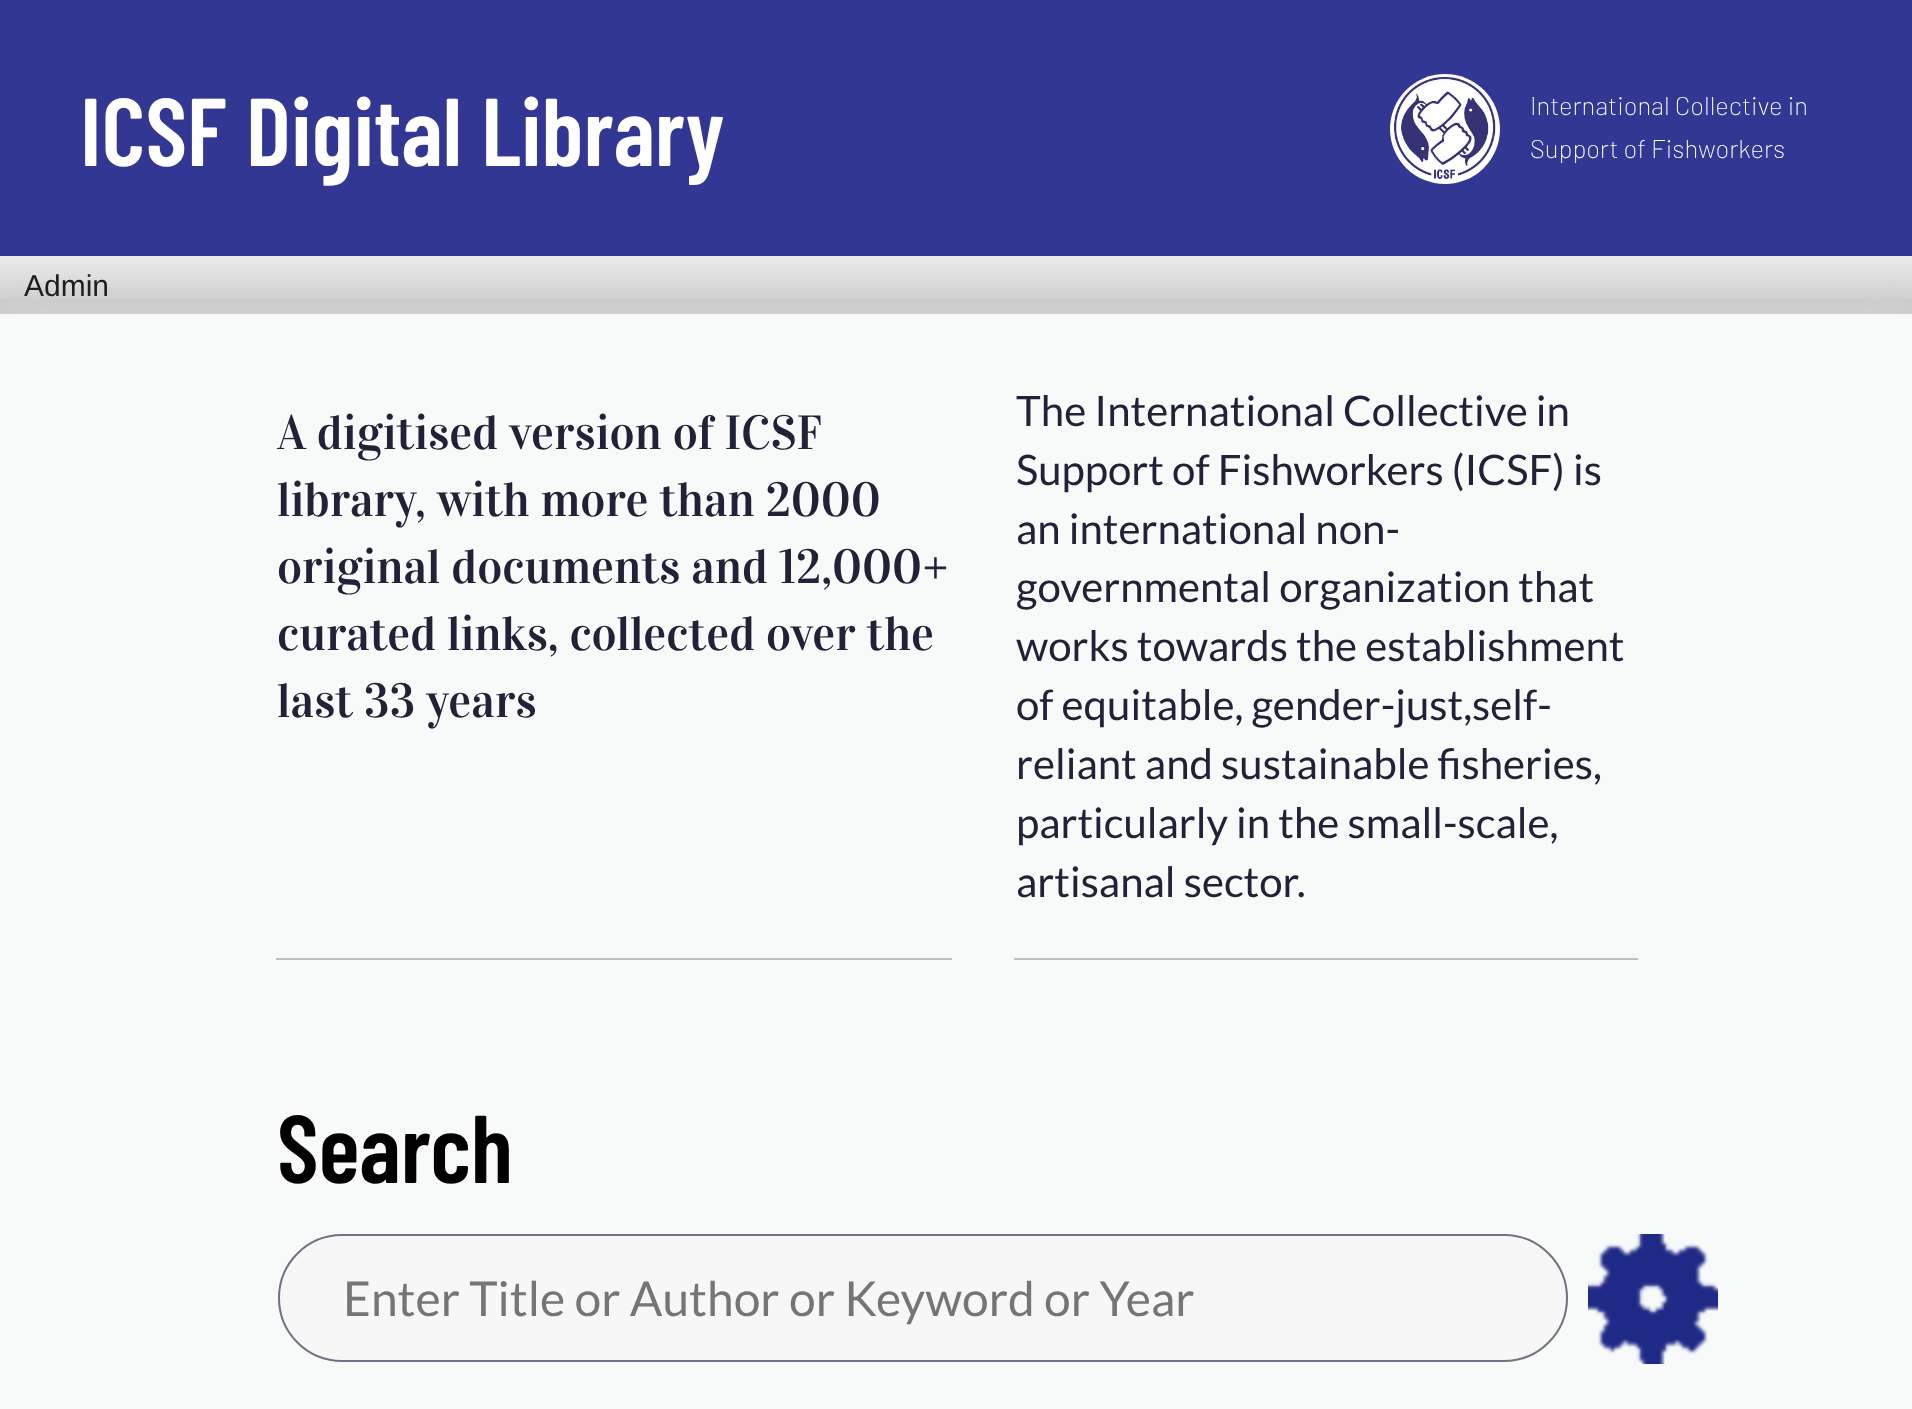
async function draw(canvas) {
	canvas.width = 1912;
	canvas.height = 1409;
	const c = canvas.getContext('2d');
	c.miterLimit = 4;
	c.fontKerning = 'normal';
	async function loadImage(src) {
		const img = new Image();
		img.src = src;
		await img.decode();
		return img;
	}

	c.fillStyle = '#313792';
	c.fillRect(0, 0, 1912, 1409);
	c.font = '600 96px Barlow Condensed';
	c.fillStyle = '#fff';
	c.fillText('ICSF Digital Library', 80, 166);
	c.drawImage(await loadImage('img1.png'), 1390, 74, 110, 110);
	c.font = '200 25.6px Barlow';
	c.fillText('International Collective in', 1530, 115);
	c.fillText('Support of Fishworkers', 1530, 158);
	c.fillStyle = '#ccc';
	c.fillRect(0, 256, 1912, 58);
	c.drawImage(await loadImage('img2.png'), 0, 256, 1912, 43);
	c.font = '30px Liberation Sans';
	c.fillStyle = '#1c1c1c';
	c.fillText('Admin', 24, 296);
	c.fillStyle = '#ddd';
	c.filter = 'blur(19px)';
	c.beginPath();
	c.rect(0, 328, 1912, 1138);
	c.fill();
	c.filter = 'none';
	c.fillStyle = '#f7faf9';
	c.fillRect(0, 314, 1912, 1095);
	c.fillStyle = '#bcbfc3';
	c.fillRect(276, 958, 676, 2);
	c.font = '48px Vidaloka';
	c.fillStyle = '#202337';
	for (const [text, x, y] of [
		['A digitised version of ICSF', 277, 449],
		['library, with more than 2000', 277, 516],
		['original documents and 12,000+', 277, 583],
		['curated links, collected over the', 277, 650],
		['last 33 years', 277, 717],
	]) {
		c.fillText(text, x, y);
	}
	c.fillStyle = '#bcbfc3';
	c.fillRect(1014, 958, 624, 2);
	c.font = '42px Lato';
	c.fillStyle = '#202337';
	for (const [text, x, y] of [
		['The International Collective in', 1016, 426],
		['Support of Fishworkers (ICSF) is', 1016, 485],
		['an international non-', 1016, 544],
		['governmental organization that', 1016, 602],
		['works towards the establishment', 1016, 661],
		['of equitable, gender-just,self-', 1016, 720],
		['reliant and sustainable fisheries,', 1016, 779],
		['particularly in the small-scale,', 1016, 838],
		['artisanal sector.', 1016, 897],
	]) {
		c.fillText(text, x, y);
	}
	c.font = '600 96px Barlow Condensed';
	c.fillStyle = '#000';
	c.fillText('Search', 277, 1183);
	c.fillStyle = '#f7f7f7';
	c.beginPath();
	c.roundRect(279, 1235, 1288, 126, 63);
	c.fill();
	c.strokeStyle = '#727380';
	c.lineWidth = 2;
	c.stroke();
	c.font = '48px Lato';
	c.fillStyle = '#757575';
	c.fillText('Enter Title or Author or Keyword or Year', 343, 1316);
	c.drawImage(await loadImage('img3.png'), 1588, 1234, 130, 130);
}

draw(document.querySelector('canvas'));
